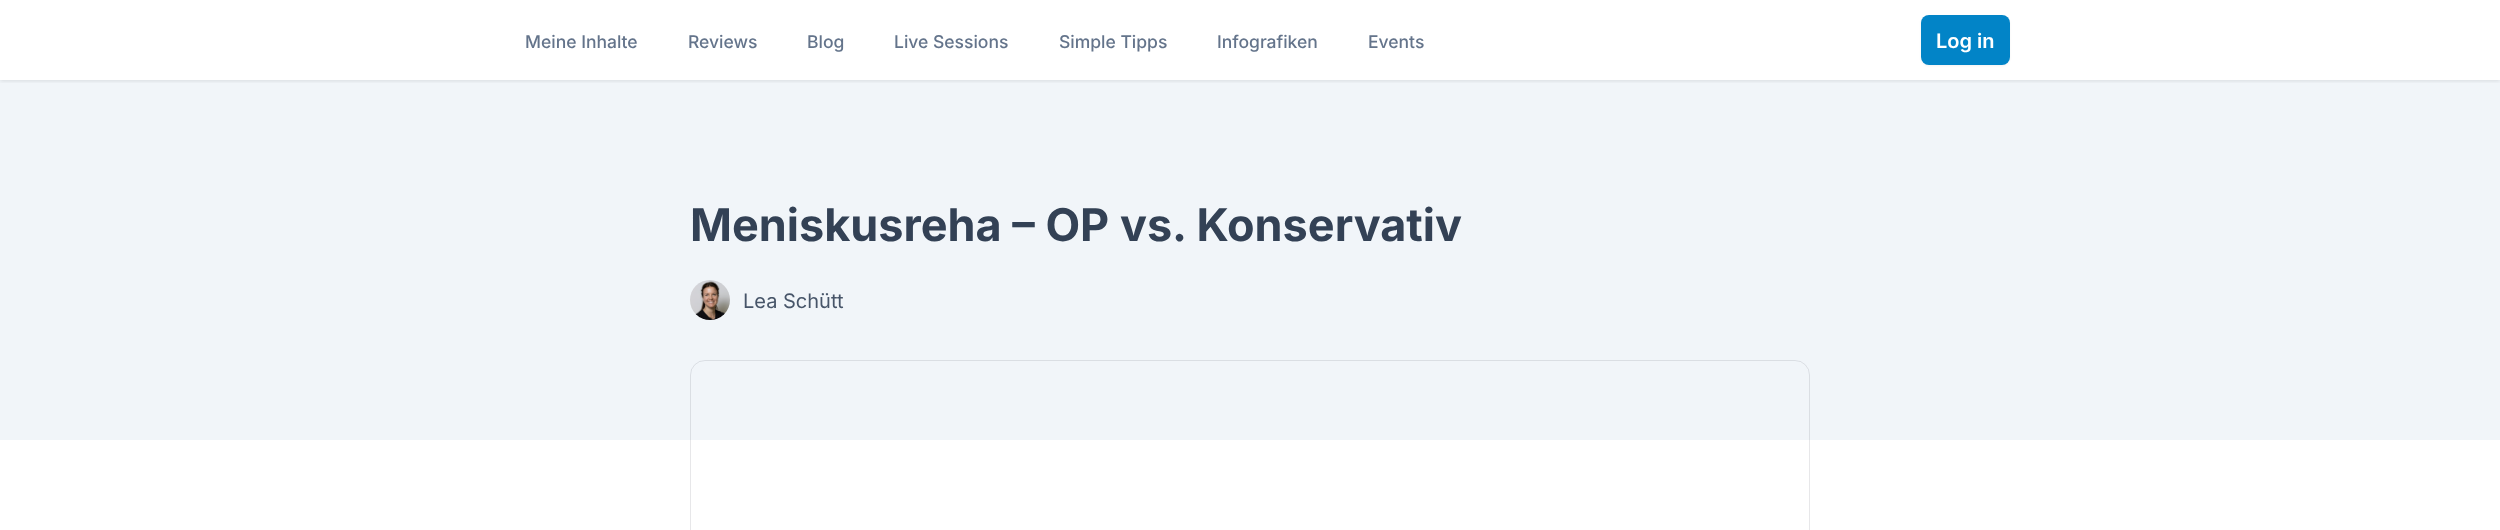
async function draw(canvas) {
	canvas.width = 2500;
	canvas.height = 530;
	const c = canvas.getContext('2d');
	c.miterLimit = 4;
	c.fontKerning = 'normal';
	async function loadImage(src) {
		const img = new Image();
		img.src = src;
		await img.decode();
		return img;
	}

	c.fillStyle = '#fff';
	c.fillRect(0, 0, 2500, 530);
	c.fillStyle = '#f1f5f9';
	c.fillRect(0, 80, 2500, 360);
	c.save();
	c.beginPath();
	c.rect(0, 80, 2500, 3);
	c.clip();
	c.fillStyle = '#0000001a';
	c.filter = 'blur(2px)';
	c.beginPath();
	c.rect(0, 1, 2500, 80);
	c.fill();
	c.filter = 'none';
	c.restore();
	c.font = '500 17.5px Inter';
	c.fillStyle = '#64748b';
	for (const [text, x, y] of [
		['Meine Inhalte', 525, 48],
		['Reviews', 688, 48],
		['Blog', 807, 48],
		['Live Sessions', 894, 48],
		['Simple Tipps', 1059, 48],
		['Infografiken', 1217, 48],
		['Events', 1368, 48],
	]) {
		c.fillText(text, x, y);
	}
	c.fillStyle = '#0000000d';
	c.filter = 'blur(1px)';
	c.beginPath();
	c.roundRect(1921, 16, 89, 50, 8);
	c.fill();
	c.filter = 'none';
	c.fillStyle = '#0284c7';
	c.beginPath();
	c.roundRect(1921, 15, 89, 50, 8);
	c.fill();
	c.font = '600 20px Inter';
	c.fillStyle = '#fff';
	c.fillText('Log in', 1936, 48);
	c.font = 'bold 45px Inter';
	c.fillStyle = '#334155';
	c.fillText('Meniskusreha – OP vs. Konservativ', 690, 241);
	c.drawImage(await loadImage('img1.png'), 690, 280, 40, 40);
	c.font = '20px Inter';
	c.fillStyle = '#475569';
	c.fillText('Lea Schütt', 743, 308);
	c.beginPath();
	c.roundRect(690.5, 360.5, 1119, 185, 14.5);
	c.strokeStyle = '#0f172a1a';
	c.stroke();
}

draw(document.querySelector('canvas'));
